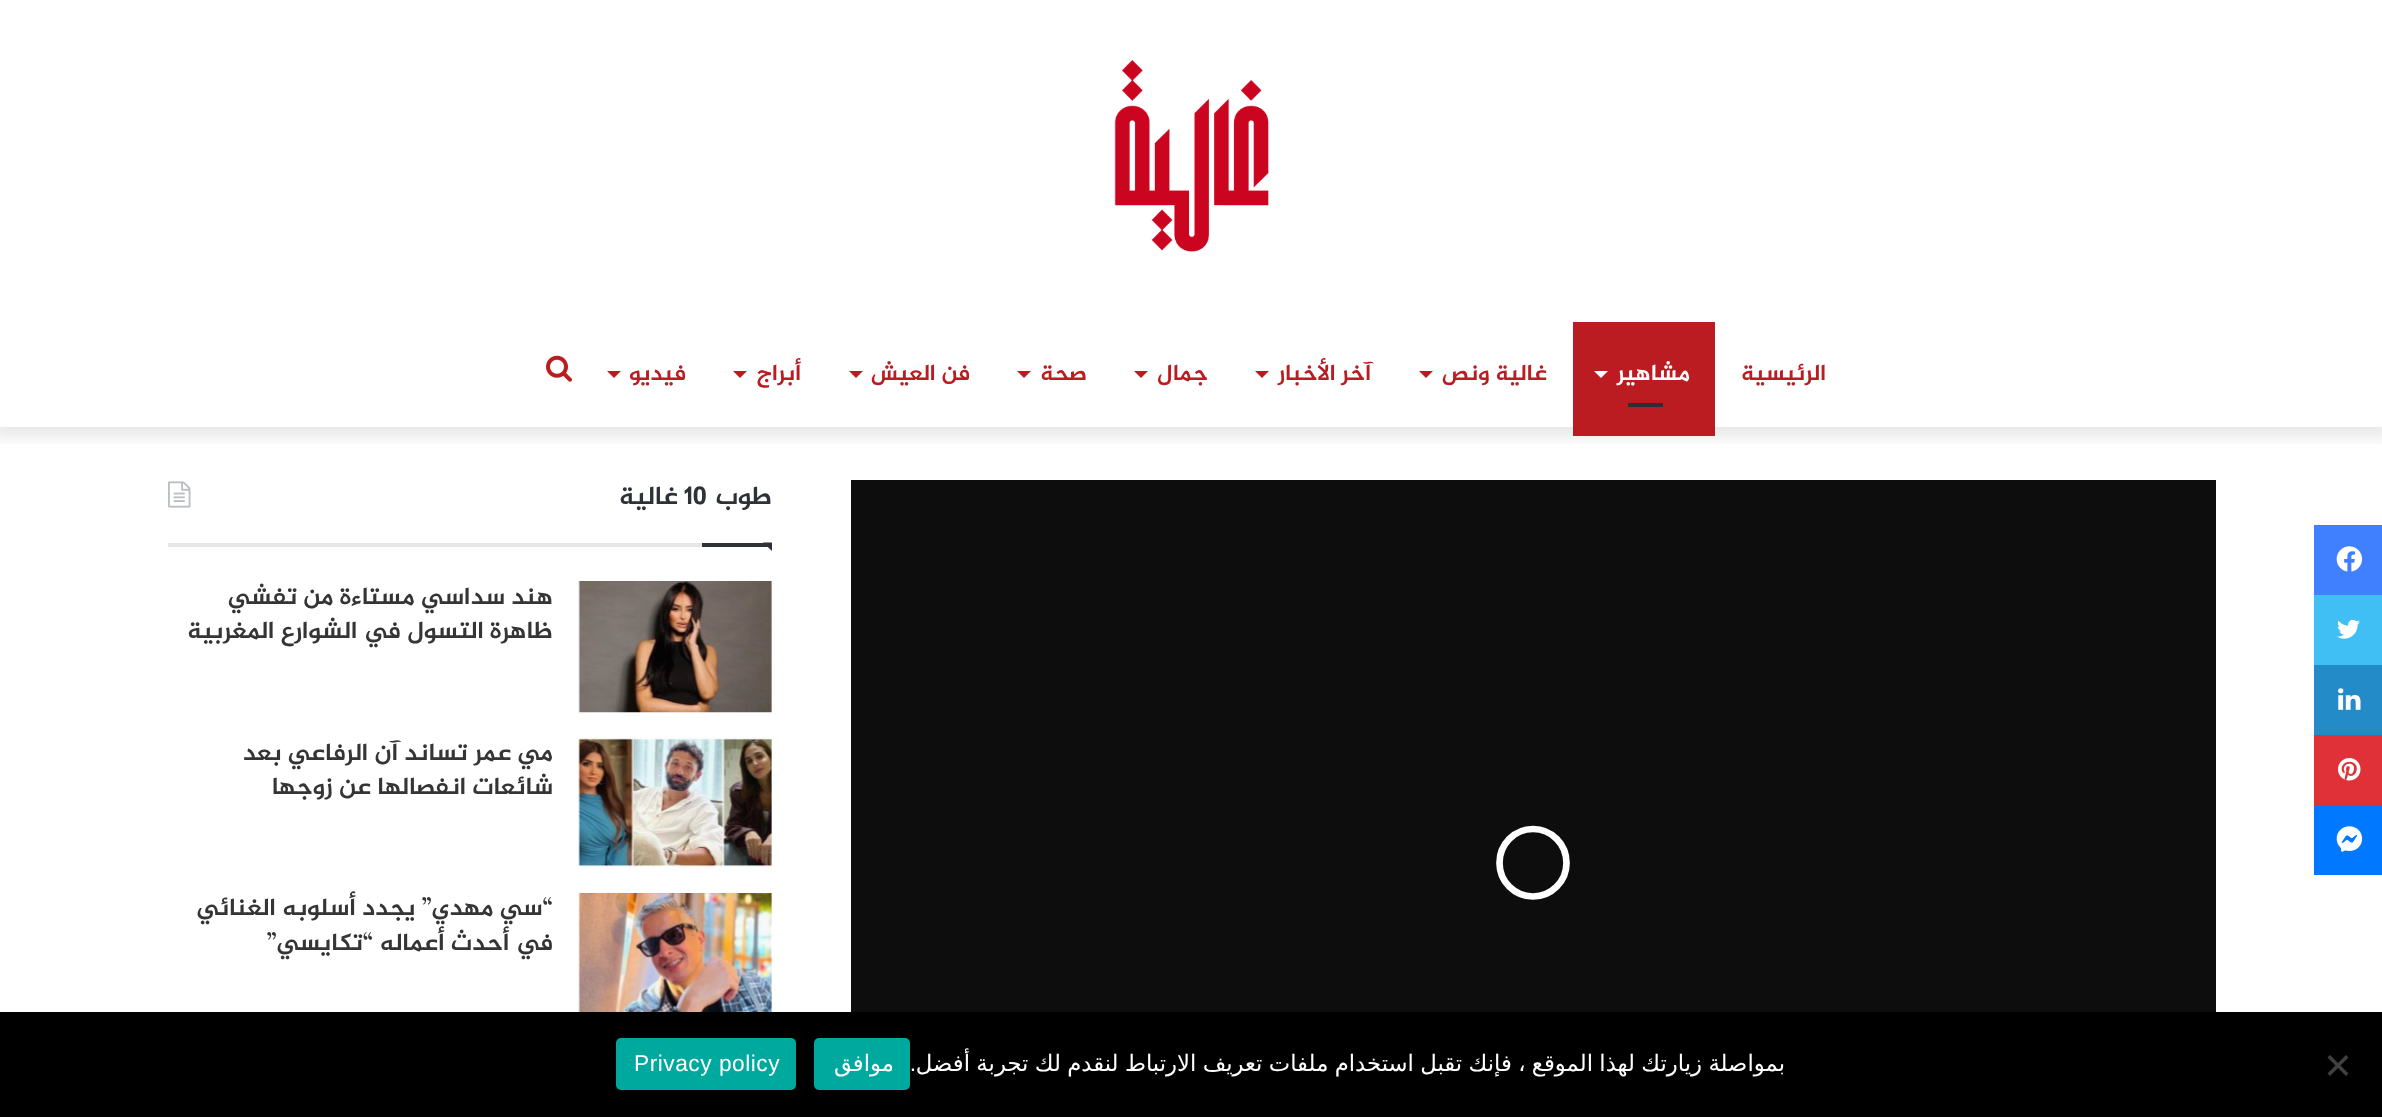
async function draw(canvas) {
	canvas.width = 2382;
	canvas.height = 1117;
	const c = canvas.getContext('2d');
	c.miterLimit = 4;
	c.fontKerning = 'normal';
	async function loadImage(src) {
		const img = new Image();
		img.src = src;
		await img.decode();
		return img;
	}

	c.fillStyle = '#fff';
	c.fillRect(0, 0, 2382, 1117);
	c.save();
	c.beginPath();
	c.rect(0, 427, 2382, 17);
	c.clip();
	c.fillStyle = '#0000001a';
	c.filter = 'blur(9px)';
	c.beginPath();
	c.rect(-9, -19, 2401, 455);
	c.fill();
	c.filter = 'none';
	c.restore();
	c.drawImage(await loadImage('img1.png'), 1114, 59, 155, 193);
	c.direction = 'rtl';
	c.font = 'bold 22.75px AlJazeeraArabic';
	c.fillStyle = '#ba1c21';
	c.fillText('الرئيسية', 1826, 380);
	c.fillRect(1573, 322, 142, 114);
	c.fillStyle = '#fff';
	c.fillText('مشاهير', 1690, 380);
	c.beginPath();
	c.moveTo(1594, 371);
	c.lineTo(1608, 371);
	c.lineTo(1601, 378);
	c.closePath();
	c.fill();
	c.fillStyle = '#2c2f34';
	c.fillRect(1628, 403, 35, 4);
	c.fillStyle = '#ba1c21';
	c.fillText('غالية ونص', 1547, 380);
	c.beginPath();
	c.moveTo(1419, 371);
	c.lineTo(1433, 371);
	c.lineTo(1426, 378);
	c.closePath();
	c.fill();
	c.fillText('آخر الأخبار', 1371, 380);
	c.beginPath();
	c.moveTo(1255, 371);
	c.lineTo(1269, 371);
	c.lineTo(1262, 378);
	c.closePath();
	c.fill();
	c.fillText('جمال', 1208, 380);
	c.beginPath();
	c.moveTo(1134, 371);
	c.lineTo(1148, 371);
	c.lineTo(1141, 378);
	c.closePath();
	c.fill();
	c.fillText('صحة', 1087, 380);
	c.beginPath();
	c.moveTo(1017, 371);
	c.lineTo(1031, 371);
	c.lineTo(1024, 378);
	c.closePath();
	c.fill();
	c.fillText('فن العيش', 970, 380);
	c.beginPath();
	c.moveTo(849, 371);
	c.lineTo(863, 371);
	c.lineTo(856, 378);
	c.closePath();
	c.fill();
	c.fillText('أبراج', 801, 380);
	c.beginPath();
	c.moveTo(733, 371);
	c.lineTo(747, 371);
	c.lineTo(740, 378);
	c.closePath();
	c.fill();
	c.fillText('فيديو', 686, 380);
	c.beginPath();
	c.moveTo(607, 371);
	c.lineTo(621, 371);
	c.lineTo(614, 378);
	c.closePath();
	c.fill();
	c.drawImage(await loadImage('img2.png'), 546, 355, 26, 27);
	c.fillStyle = '#4080ff';
	c.fillRect(2314, 525, 68, 70);
	c.drawImage(await loadImage('img3.png'), 2336, 546, 27, 26);
	c.fillStyle = '#40bff5';
	c.fillRect(2314, 595, 68, 70);
	c.drawImage(await loadImage('img4.png'), 2337, 619, 23, 20);
	c.fillStyle = '#238cc8';
	c.fillRect(2314, 665, 68, 70);
	c.drawImage(await loadImage('img5.png'), 2338, 688, 23, 22);
	c.fillStyle = '#e13138';
	c.fillRect(2314, 735, 68, 70);
	c.drawImage(await loadImage('img6.png'), 2338, 758, 23, 23);
	c.fillStyle = '#0078ff';
	c.fillRect(2314, 805, 68, 70);
	c.drawImage(await loadImage('img7.png'), 2336, 826, 27, 26);
	c.fillStyle = '#0d0d0d';
	c.fillRect(851, 480, 1365, 532);
	c.beginPath();
	c.moveTo(1499.5, 863);
	c.bezierCurveTo(1499.5, 844, 1514.5, 829, 1533, 829);
	c.bezierCurveTo(1551.5, 829, 1566.5, 844, 1566.5, 863);
	c.bezierCurveTo(1566.5, 881.5, 1551.5, 896.5, 1533, 896.5);
	c.bezierCurveTo(1514.5, 896.5, 1499.5, 881.5, 1499.5, 863);
	c.strokeStyle = '#fff';
	c.lineWidth = 6.7;
	c.stroke();
	c.fillStyle = '#e6e6e6';
	c.fillRect(168, 543, 534, 4);
	c.font = 'bold 26px AlJazeeraArabic';
	c.fillStyle = '#2e3136';
	c.fillText('طوب', 772, 504);
	c.direction = 'ltr';
	c.fillText('10', 684, 504);
	c.direction = 'rtl';
	c.fillText('غالية', 678, 504);
	c.drawImage(await loadImage('img8.png'), 168, 481, 23, 27);
	c.beginPath();
	c.moveTo(763, 542.5);
	c.lineTo(772, 542.5);
	c.lineTo(772, 551);
	c.closePath();
	c.fill();
	c.fillRect(702, 543, 70, 4);
	c.drawImage(await loadImage('img9.png'), 578, 581, 194, 132);
	c.font = 'bold 24.5px AlJazeeraArabic';
	c.fillStyle = '#353535';
	c.fillText('هند سداسي مستاءة من تفشي', 553, 604);
	c.fillText('ظاهرة التسول في الشوارع المغربية', 553, 638);
	c.drawImage(await loadImage('img10.png'), 578, 737, 194, 131);
	c.fillText('مي عمر تساند آن الرفاعي بعد', 553, 760);
	c.fillText('شائعات انفصالها عن زوجها', 553, 794);
	c.drawImage(await loadImage('img11.png'), 578, 893, 194, 119);
	c.fillText('“سي مهدي” يجدد أسلوبه الغنائي', 553, 915);
	c.fillText('في أحدث أعماله “تكايسي”', 553, 950);
	c.fillStyle = '#000';
	c.fillRect(0, 1012, 2382, 105);
	c.fillStyle = '#404040';
	c.beginPath();
	c.moveTo(2346, 1055);
	c.lineTo(2348.5, 1057.5);
	c.lineTo(2330, 1076);
	c.lineTo(2327.5, 1073.5);
	c.closePath();
	c.fill();
	c.beginPath();
	c.moveTo(2327.5, 1057.5);
	c.lineTo(2330, 1055);
	c.lineTo(2348.5, 1073.5);
	c.lineTo(2346, 1076);
	c.closePath();
	c.fill();
	c.wordSpacing = '-0.9px';
	c.font = '22.75px DejaVu Sans';
	c.fillStyle = '#fff';
	c.fillText('بمواصلة زيارتك لهذا الموقع ، فإنك تقبل استخدام ملفات تعريف الارتباط لنقدم لك تجربة أفضل', 1785, 1071);
	c.wordSpacing = '0px';
	c.font = '22.75px Liberation Sans';
	c.fillText('.', 916, 1071);
	c.fillStyle = '#00a99d';
	c.beginPath();
	c.roundRect(814, 1038, 96, 52, 5);
	c.fill();
	c.letterSpacing = '0.5px';
	c.font = '22.75px DejaVu Sans';
	c.fillStyle = '#fff';
	c.fillText('موافق', 894, 1071);
	c.fillStyle = '#00a99d';
	c.beginPath();
	c.roundRect(616, 1038, 180, 52, 5);
	c.fill();
	c.direction = 'ltr';
	c.font = '22.75px Liberation Sans';
	c.fillStyle = '#fff';
	c.fillText('Privacy policy', 634, 1071);
}

draw(document.querySelector('canvas'));
